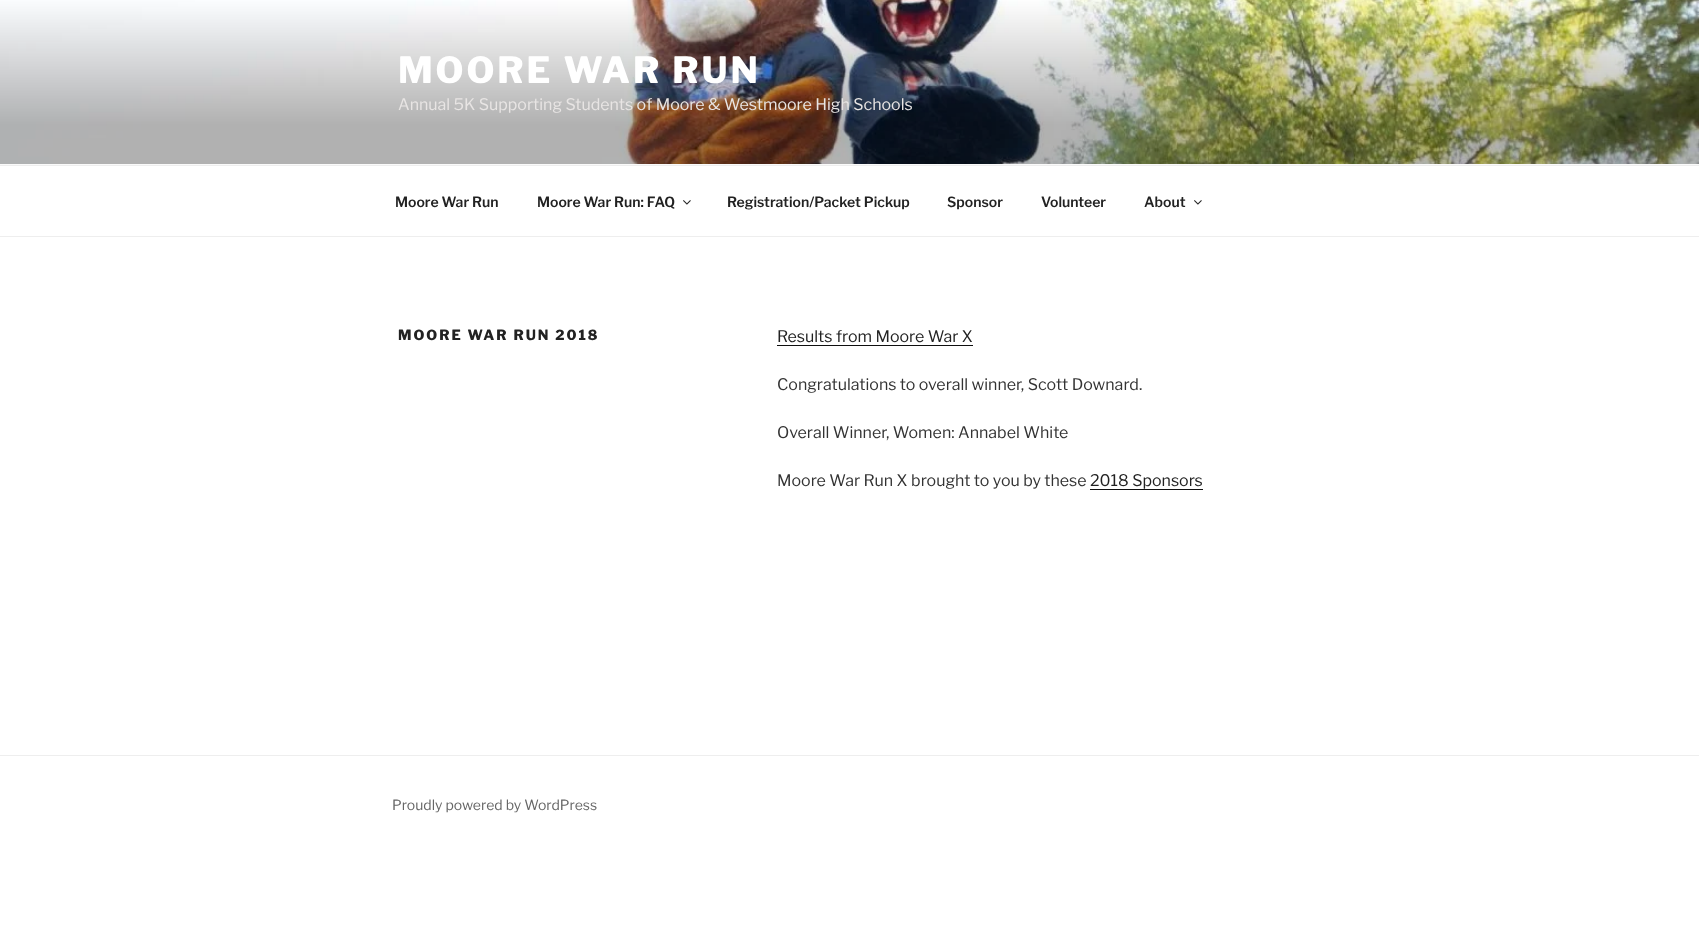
async function draw(canvas) {
	canvas.width = 1699;
	canvas.height = 931;
	const c = canvas.getContext('2d');
	c.miterLimit = 4;
	c.fontKerning = 'normal';
	async function loadImage(src) {
		const img = new Image();
		img.src = src;
		await img.decode();
		return img;
	}

	c.fillStyle = '#fff';
	c.fillRect(0, 0, 1699, 931);
	c.fillStyle = '#fafafa';
	c.fillRect(0, 164, 1699, 1);
	c.drawImage(await loadImage('img1.png'), 0, 0, 1699, 164);
	c.letterSpacing = '2.9px';
	c.font = '800 36px Libre Franklin';
	c.fillStyle = '#fff';
	c.fillText('MOORE WAR RUN', 398, 83);
	c.letterSpacing = '0px';
	c.font = '16px Libre Franklin';
	c.fillStyle = '#e8e5e4';
	c.fillText('Annual 5K Supporting Students of Moore & Westmoore High Schools', 398, 110);
	c.fillStyle = '#eee';
	c.fillRect(0, 165, 1699, 1);
	c.fillRect(0, 236, 1699, 1);
	c.font = '600 14px Libre Franklin';
	c.fillStyle = '#222';
	c.fillText('Moore War Run', 395, 207);
	c.fillText('Moore War Run: FAQ', 537, 207);
	c.drawImage(await loadImage('img2.png'), 683, 200, 8, 5);
	for (const [text, x, y] of [
		['Registration/Packet Pickup', 727, 207],
		['Sponsor', 947, 207],
		['Volunteer', 1041, 207],
		['About', 1144, 207],
	]) {
		c.fillText(text, x, y);
	}
	c.drawImage(await loadImage('img2.png'), 1194, 200, 8, 5);
	c.letterSpacing = '2px';
	c.font = '800 14px Libre Franklin';
	c.fillText('MOORE WAR RUN 2018', 398, 340);
	c.letterSpacing = '0px';
	c.font = '16px Libre Franklin';
	c.fillText('Results from Moore War X', 777, 342);
	c.fillStyle = '#0f0f0f';
	c.fillRect(777, 345, 196, 1);
	c.fillStyle = '#333';
	for (const [text, x, y] of [
		['Congratulations to overall winner, Scott Downard.', 777, 390],
		['Overall Winner, Women: Annabel White', 777, 438],
		['Moore War Run X brought to you by these', 777, 486],
	]) {
		c.fillText(text, x, y);
	}
	c.fillStyle = '#222';
	c.fillText('2018 Sponsors', 1090, 486);
	c.fillStyle = '#0f0f0f';
	c.fillRect(1090, 489, 113, 1);
	c.fillStyle = '#eee';
	c.fillRect(0, 755, 1699, 1);
	c.font = '14px Libre Franklin';
	c.fillStyle = '#666';
	c.fillText('Proudly powered by WordPress', 392, 810);
}

draw(document.querySelector('canvas'));
